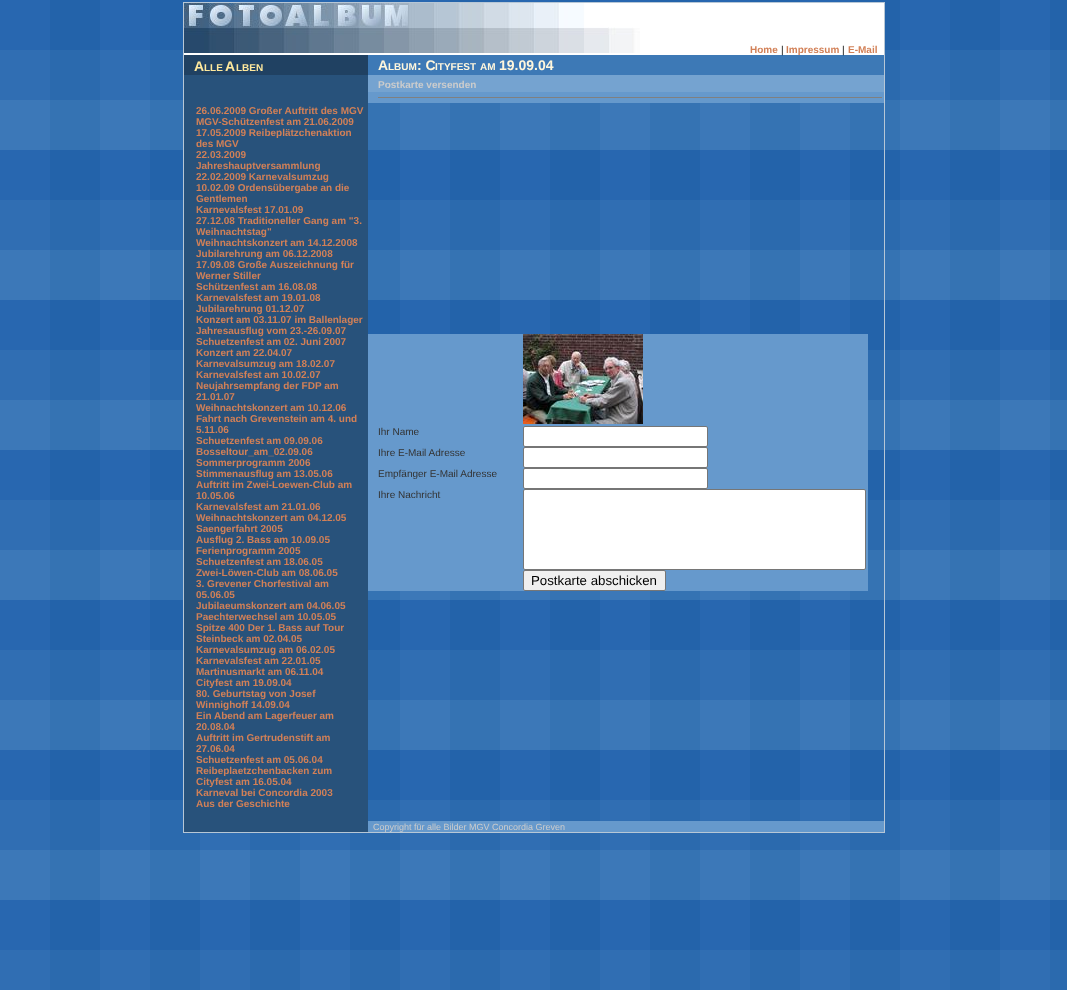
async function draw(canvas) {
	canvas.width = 1067;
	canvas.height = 990;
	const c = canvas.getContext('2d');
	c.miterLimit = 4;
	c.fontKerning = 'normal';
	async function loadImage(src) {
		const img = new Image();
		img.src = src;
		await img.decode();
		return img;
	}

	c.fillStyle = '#fff';
	c.fillRect(0, 0, 1067, 990);
	c.drawImage(await loadImage('img1.png'), 0, 0, 1067, 990);
	c.strokeStyle = '#b7c7d6';
	c.strokeRect(183.5, 2.5, 701, 830);
	c.fillRect(184, 3, 700, 52);
	c.drawImage(await loadImage('img2.png'), 184, 3, 456, 50);
	c.font = 'bold 10px Liberation Sans';
	c.fillStyle = '#d28057';
	c.fillText('Home', 750, 53);
	c.fillStyle = '#3d79b6';
	c.fillRect(368, 55, 516, 20);
	c.font = '10px Liberation Sans';
	c.fillStyle = '#000';
	c.fillText('|', 781, 53);
	c.font = 'bold 10px Liberation Sans';
	c.fillStyle = '#d28057';
	c.fillText('Impressum', 786, 53);
	c.font = '10px Liberation Sans';
	c.fillStyle = '#000';
	c.fillText('|', 842, 53);
	c.font = 'bold 10px Liberation Sans';
	c.fillStyle = '#d28057';
	c.fillText('E-Mail', 848, 53);
	c.fillStyle = '#204162';
	c.fillRect(184, 55, 184, 20);
	c.font = 'bold 14px Liberation Sans';
	c.fillStyle = '#ffe99d';
	c.fillText('A', 194, 71);
	c.font = 'bold 10px Liberation Sans';
	c.fillText('LLE', 204, 71);
	c.font = 'bold 14px Liberation Sans';
	c.fillText('A', 225, 71);
	c.font = 'bold 10px Liberation Sans';
	c.fillText('LBEN', 236, 71);
	c.font = 'bold 14px Liberation Sans';
	c.fillStyle = '#fff7dd';
	c.fillText('A', 378, 70);
	c.font = 'bold 10px Liberation Sans';
	c.fillText('LBUM', 388, 70);
	c.font = 'bold 14px Liberation Sans';
	c.fillText(': C', 417, 70);
	c.font = 'bold 10px Liberation Sans';
	c.fillText('ITYFEST', 435, 70);
	c.fillText('AM', 480, 70);
	c.font = 'bold 14px Liberation Sans';
	c.fillText('19.09.04', 499, 70);
	c.fillStyle = '#28527b';
	c.fillRect(184, 75, 184, 757);
	c.fillStyle = '#75a3d0';
	c.fillRect(368, 75, 516, 17);
	c.font = 'bold 10px Liberation Sans';
	c.fillStyle = '#ccc';
	c.fillText('Postkarte versenden', 378, 88);
	c.fillStyle = '#69c';
	c.fillRect(368, 92, 516, 11);
	c.fillStyle = '#808080';
	c.fillRect(378, 97, 504, 1);
	c.fillStyle = '#d28057';
	for (const [text, x, y] of [
		['26.06.2009 Großer Auftritt des MGV', 196, 114],
		['MGV-Schützenfest am 21.06.2009', 196, 125],
		['17.05.2009 Reibeplätzchenaktion', 196, 136],
		['des MGV', 196, 147],
		['22.03.2009', 196, 158],
		['Jahreshauptversammlung', 196, 169],
		['22.02.2009 Karnevalsumzug', 196, 180],
		['10.02.09 Ordensübergabe an die', 196, 191],
		['Gentlemen', 196, 202],
		['Karnevalsfest 17.01.09', 196, 213],
		['27.12.08 Traditioneller Gang am "3.', 196, 224],
		['Weihnachtstag"', 196, 235],
		['Weihnachtskonzert am 14.12.2008', 196, 246],
		['Jubilarehrung am 06.12.2008', 196, 257],
		['17.09.08 Große Auszeichnung für', 196, 268],
		['Werner Stiller', 196, 279],
		['Schützenfest am 16.08.08', 196, 290],
		['Karnevalsfest am 19.01.08', 196, 301],
		['Jubilarehrung 01.12.07', 196, 312],
		['Konzert am 03.11.07 im Ballenlager', 196, 323],
		['Jahresausflug vom 23.-26.09.07', 196, 334],
		['Schuetzenfest am 02. Juni 2007', 196, 345],
		['Konzert am 22.04.07', 196, 356],
		['Karnevalsumzug am 18.02.07', 196, 367],
		['Karnevalsfest am 10.02.07', 196, 378],
		['Neujahrsempfang der FDP am', 196, 389],
		['21.01.07', 196, 400],
		['Weihnachtskonzert am 10.12.06', 196, 411],
		['Fahrt nach Grevenstein am 4. und', 196, 422],
		['5.11.06', 196, 433],
		['Schuetzenfest am 09.09.06', 196, 444],
		['Bosseltour_am_02.09.06', 196, 455],
		['Sommerprogramm 2006', 196, 466],
		['Stimmenausflug am 13.05.06', 196, 477],
		['Auftritt im Zwei-Loewen-Club am', 196, 488],
		['10.05.06', 196, 499],
		['Karnevalsfest am 21.01.06', 196, 510],
		['Weihnachtskonzert am 04.12.05', 196, 521],
		['Saengerfahrt 2005', 196, 532],
		['Ausflug 2. Bass am 10.09.05', 196, 543],
		['Ferienprogramm 2005', 196, 554],
		['Schuetzenfest am 18.06.05', 196, 565],
		['Zwei-Löwen-Club am 08.06.05', 196, 576],
		['3. Grevener Chorfestival am', 196, 587],
		['05.06.05', 196, 598],
		['Jubilaeumskonzert am 04.06.05', 196, 609],
		['Paechterwechsel am 10.05.05', 196, 620],
		['Spitze 400 Der 1. Bass auf Tour', 196, 631],
		['Steinbeck am 02.04.05', 196, 642],
		['Karnevalsumzug am 06.02.05', 196, 653],
		['Karnevalsfest am 22.01.05', 196, 664],
		['Martinusmarkt am 06.11.04', 196, 675],
		['Cityfest am 19.09.04', 196, 686],
		['80. Geburtstag von Josef', 196, 697],
		['Winnighoff 14.09.04', 196, 708],
		['Ein Abend am Lagerfeuer am', 196, 719],
		['20.08.04', 196, 730],
		['Auftritt im Gertrudenstift am', 196, 741],
		['27.06.04', 196, 752],
		['Schuetzenfest am 05.06.04', 196, 763],
		['Reibeplaetzchenbacken zum', 196, 774],
		['Cityfest am 16.05.04', 196, 785],
		['Karneval bei Concordia 2003', 196, 796],
		['Aus der Geschichte', 196, 807],
	]) {
		c.fillText(text, x, y);
	}
	c.fillStyle = '#69c';
	c.fillRect(368, 334, 500, 92);
	c.drawImage(await loadImage('img3.png'), 523, 334, 120, 90);
	c.fillRect(368, 426, 500, 21);
	c.font = '10px Liberation Sans';
	c.fillStyle = '#333';
	c.fillText('Ihr Name', 378, 435);
	c.fillStyle = '#fff';
	c.beginPath();
	c.roundRect(523.5, 426.5, 184, 20, 1.5);
	c.fill();
	c.strokeStyle = '#767676';
	c.stroke();
	c.fillStyle = '#69c';
	c.fillRect(368, 447, 500, 21);
	c.fillStyle = '#333';
	c.fillText('Ihre E-Mail Adresse', 378, 456);
	c.fillStyle = '#fff';
	c.beginPath();
	c.roundRect(523.5, 447.5, 184, 20, 1.5);
	c.fill();
	c.stroke();
	c.fillStyle = '#69c';
	c.fillRect(368, 468, 500, 21);
	c.fillStyle = '#333';
	c.fillText('Empfänger E-Mail Adresse', 378, 477);
	c.fillStyle = '#fff';
	c.beginPath();
	c.roundRect(523.5, 468.5, 184, 20, 1.5);
	c.fill();
	c.stroke();
	c.fillStyle = '#69c';
	c.fillRect(368, 489, 500, 81);
	c.fillStyle = '#333';
	c.fillText('Ihre Nachricht', 378, 498);
	c.fillStyle = '#fff';
	c.beginPath();
	c.roundRect(523.5, 489.5, 342, 80, 1.5);
	c.fill();
	c.stroke();
	c.fillStyle = '#69c';
	c.fillRect(368, 570, 500, 21);
	c.fillStyle = '#efefef';
	c.beginPath();
	c.roundRect(523.5, 570.5, 142, 20, 1.5);
	c.fill();
	c.stroke();
	c.font = '13.25px Liberation Sans';
	c.fillStyle = '#000';
	c.fillText('Postkarte abschicken', 531, 585);
	c.fillStyle = '#69c';
	c.fillRect(368, 821, 516, 11);
	c.font = '9px Liberation Sans';
	c.fillStyle = '#ccc';
	c.fillText('Copyright für alle Bilder MGV Concordia Greven', 373, 830);
}

draw(document.querySelector('canvas'));
